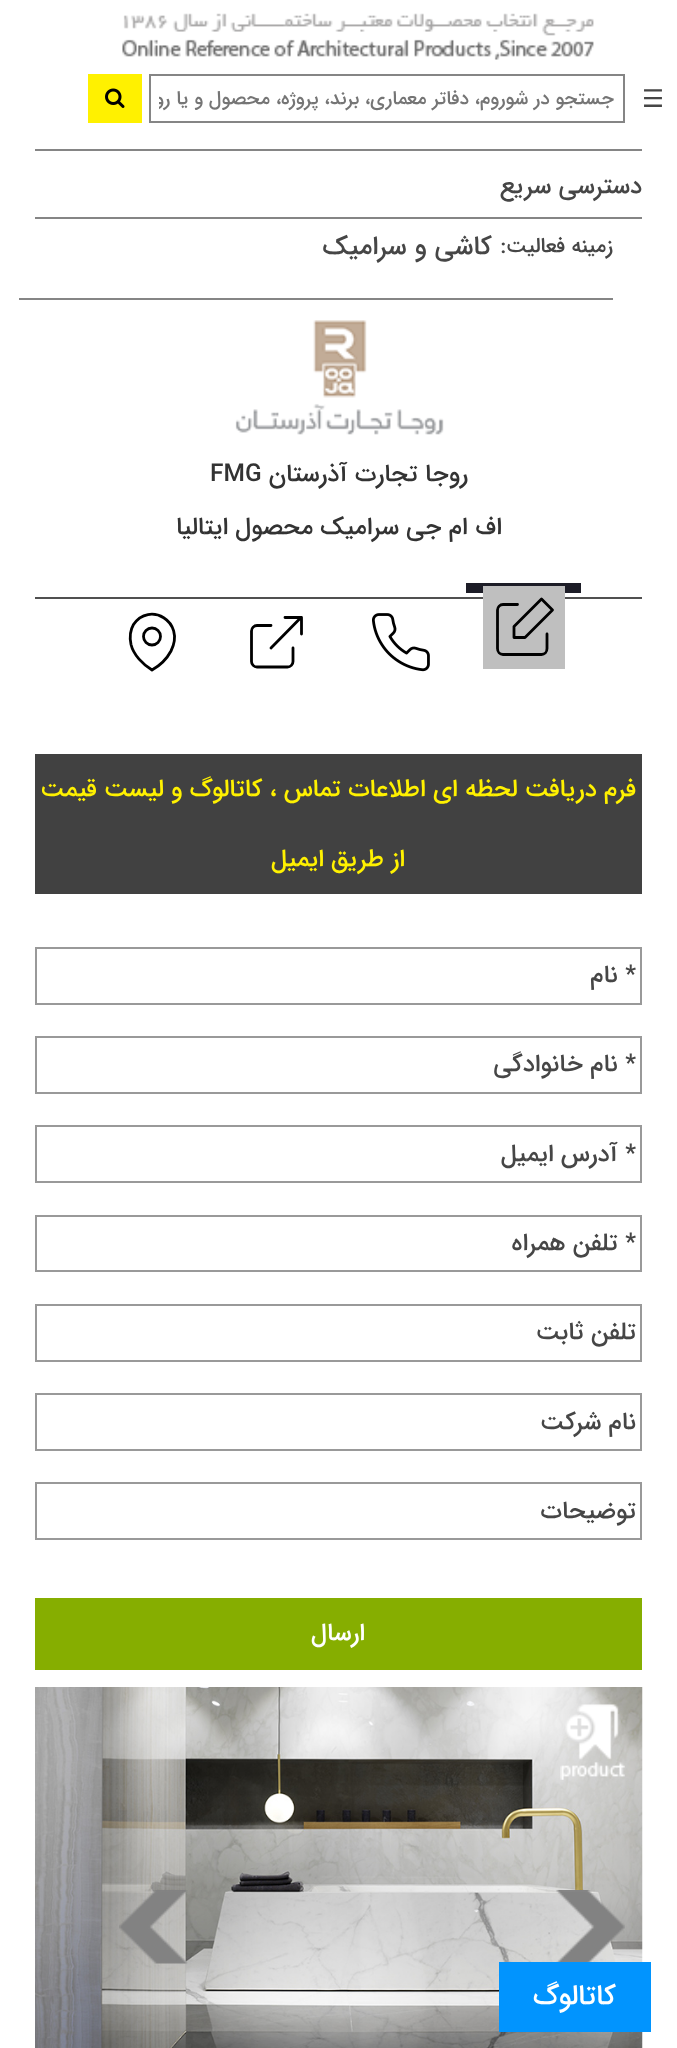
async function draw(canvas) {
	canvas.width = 677;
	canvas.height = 2048;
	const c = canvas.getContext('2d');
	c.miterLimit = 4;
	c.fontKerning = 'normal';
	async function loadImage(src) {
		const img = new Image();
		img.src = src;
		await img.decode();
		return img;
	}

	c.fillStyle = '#fff';
	c.fillRect(0, 0, 677, 2048);
	c.drawImage(await loadImage('img1.png'), 122, 13, 472, 47);
	c.font = '24.5px DejaVu Sans';
	c.fillStyle = '#464646';
	c.fillText('☰', 642, 107);
	c.strokeStyle = '#858585';
	c.lineWidth = 2;
	c.strokeRect(150, 75, 474, 47);
	c.save();
	c.beginPath();
	c.rect(159, 86, 455, 30);
	c.clip();
	c.direction = 'rtl';
	c.font = '500 19.25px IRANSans';
	c.fillStyle = '#757575';
	c.fillText('جستجو در شوروم، دفاتر معماری، برند، پروژه، محصول و یا رويداد', 614, 104);
	c.restore();
	c.fillStyle = '#fff100';
	c.fillRect(88, 74, 54, 49);
	c.drawImage(await loadImage('img2.png'), 105, 88, 20, 20);
	c.fillStyle = '#858585';
	c.fillRect(35, 149, 607, 2);
	c.fillRect(35, 217, 607, 2);
	c.direction = 'rtl';
	c.font = '500 24.5px IRANSans';
	c.fillStyle = '#464646';
	c.fillText('دسترسی سريع', 642, 193);
	c.fillStyle = '#858585';
	c.fillRect(19, 298, 594, 2);
	c.font = '500 21px IRANSans';
	c.fillStyle = '#464646';
	c.fillText('زمينه فعاليت:', 613, 252);
	c.font = '500 26.25px IRANSans';
	c.fillText('کاشی و سرامیک', 492, 254);
	c.drawImage(await loadImage('img3.png'), 235, 320, 209, 115);
	c.font = '500 24.5px IRANSans';
	c.fillStyle = '#333';
	c.fillText('روجا تجارت آذرستان', 468, 481);
	c.direction = 'ltr';
	c.fillText('FMG', 210, 481);
	c.direction = 'rtl';
	c.fillText('اف ام جی سرامیک محصول ایتالیا', 502, 534);
	for (const [x, y, w, h, color] of [
		[35, 597, 607, 2, '#505050'],
		[466, 583, 115, 10, '#1d1d27'],
		[483, 586, 82, 83, '#bfbfbf'],
	]) {
		c.fillStyle = color;
		c.fillRect(x, y, w, h);
	}
	c.beginPath();
	c.moveTo(547, 634);
	c.lineTo(547, 648.5);
	c.bezierCurveTo(547, 652, 544.5, 654.5, 541.5, 654.5);
	c.lineTo(503, 654.5);
	c.bezierCurveTo(500, 654.5, 497.5, 652, 497.5, 648.5);
	c.lineTo(497.5, 610);
	c.bezierCurveTo(497.5, 607, 500, 604.5, 503, 604.5);
	c.lineTo(517.5, 604.5);
	c.moveTo(541.5, 599);
	c.lineTo(552.5, 610);
	c.lineTo(525, 637.5);
	c.lineTo(514, 637.5);
	c.lineTo(514, 626.5);
	c.closePath();
	c.strokeStyle = '#000';
	c.lineWidth = 2.8;
	c.lineCap = 'round';
	c.lineJoin = 'round';
	c.stroke();
	c.drawImage(await loadImage('img4.png'), 372, 613, 58, 59);
	c.beginPath();
	c.moveTo(293, 648);
	c.lineTo(293, 661.5);
	c.bezierCurveTo(293, 664.5, 290.5, 667, 287.5, 667);
	c.lineTo(257, 667);
	c.bezierCurveTo(254, 667, 251.5, 664.5, 251.5, 661.5);
	c.lineTo(251.5, 631);
	c.bezierCurveTo(251.5, 628, 254, 625.5, 257, 625.5);
	c.lineTo(271, 625.5);
	c.moveTo(285, 617.5);
	c.lineTo(301.5, 617.5);
	c.lineTo(301.5, 634);
	c.moveTo(271, 648);
	c.lineTo(299, 619.5);
	c.stroke();
	c.beginPath();
	c.moveTo(152, 670);
	c.bezierCurveTo(143, 664.5, 133.5, 655, 131, 644.5);
	c.bezierCurveTo(129.5, 637.5, 130, 630.5, 133.5, 624.5);
	c.bezierCurveTo(149, 601, 186, 621, 171, 651);
	c.bezierCurveTo(167, 658.5, 160, 665.5, 152, 670);
	c.closePath();
	c.stroke();
	c.beginPath();
	c.arc(152, 636.5, 8.5, 0, 2 * Math.PI);
	c.stroke();
	c.fillStyle = '#414141';
	c.fillRect(35, 754, 607, 140);
	c.fillStyle = '#fff100';
	c.fillText('فرم دریافت لحظه ای اطلاعات تماس ، کاتالوگ و لیست قیمت', 636, 796);
	c.fillText('از طریق ایمیل', 405, 866);
	c.strokeStyle = '#999';
	c.lineWidth = 2;
	c.lineJoin = 'miter';
	c.strokeRect(36, 948, 605, 56);
	c.fillStyle = '#464646';
	c.fillText('* نام', 636, 982);
	c.strokeRect(36, 1037, 605, 56);
	c.fillText('* نام خانوادگی', 636, 1071);
	c.strokeRect(36, 1126, 605, 56);
	c.fillText('* آدرس ایمیل', 636, 1161);
	c.strokeRect(36, 1216, 605, 55);
	c.fillText('* تلفن همراه', 636, 1250);
	c.strokeRect(36, 1305, 605, 56);
	c.fillText('تلفن ثابت', 636, 1339);
	c.strokeRect(36, 1394, 605, 56);
	c.fillText('نام شرکت', 636, 1429);
	c.strokeRect(36, 1483, 605, 56);
	c.fillText('توضیحات', 636, 1518);
	c.fillStyle = '#86ae00';
	c.fillRect(35, 1598, 607, 72);
	c.fillStyle = '#fff';
	c.fillText('ارسال', 365, 1640);
	c.drawImage(await loadImage('img5.png'), 35, 1687, 608, 361);
	c.drawImage(await loadImage('img6.png'), 560, 1704, 65, 76);
	c.drawImage(await loadImage('img7.png'), 556, 1890, 69, 72);
	c.drawImage(await loadImage('img8.png'), 119, 1890, 69, 74);
	c.fillStyle = '#0194fe';
	c.fillRect(499, 1962, 152, 70);
	c.font = '500 28px IRANSans';
	c.fillStyle = '#fff';
	c.fillText('کاتالوگ', 616, 2004);
}

draw(document.querySelector('canvas'));
